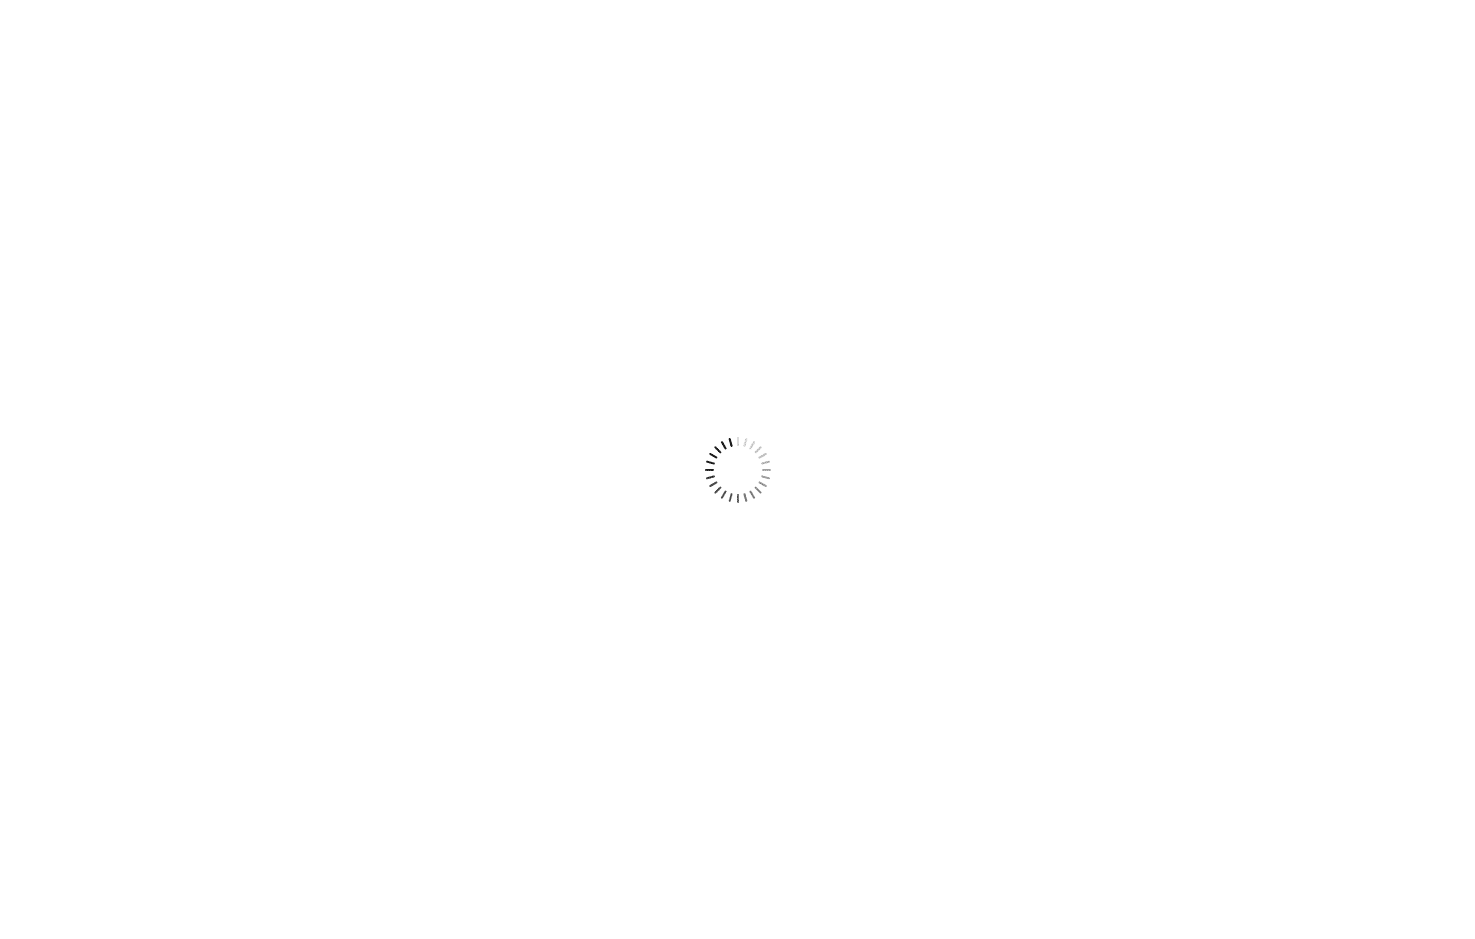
async function draw(canvas) {
	canvas.width = 1475;
	canvas.height = 939;
	const c = canvas.getContext('2d');
	c.miterLimit = 4;
	c.fontKerning = 'normal';
	async function loadImage(src) {
		const img = new Image();
		img.src = src;
		await img.decode();
		return img;
	}

	c.fillStyle = '#fff';
	c.fillRect(0, 0, 1475, 939);
	c.drawImage(await loadImage('img1.png'), 705, 437, 66, 66);
}

draw(document.querySelector('canvas'));
